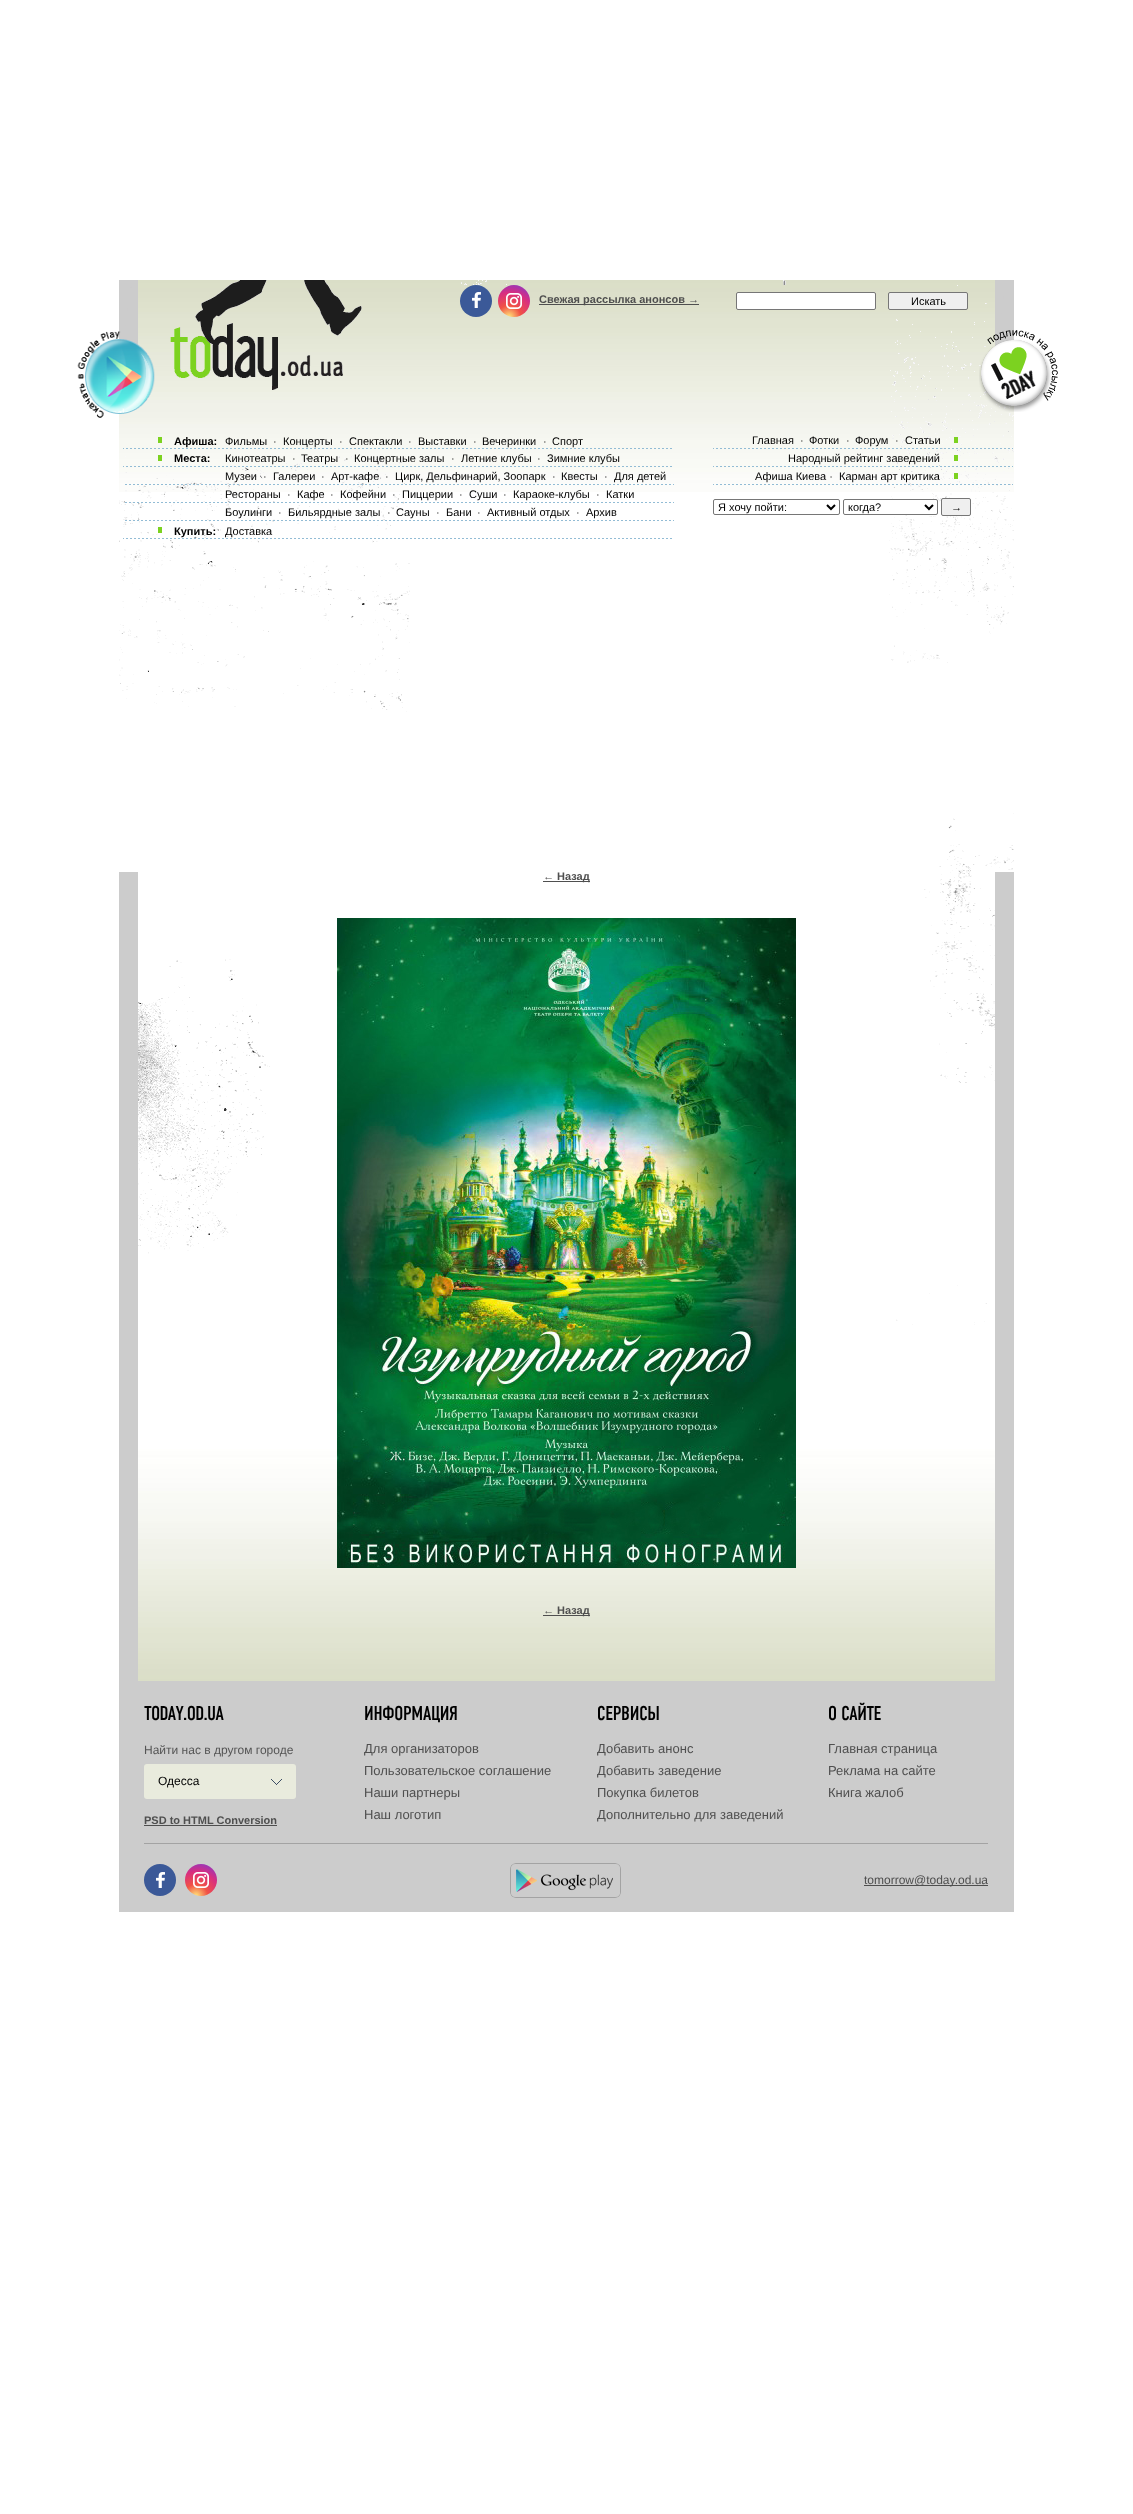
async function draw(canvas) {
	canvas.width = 1133;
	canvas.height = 2514;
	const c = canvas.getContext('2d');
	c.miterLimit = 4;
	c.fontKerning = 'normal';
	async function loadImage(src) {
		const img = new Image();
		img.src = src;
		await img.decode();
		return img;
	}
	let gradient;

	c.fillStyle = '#fff';
	c.fillRect(0, 0, 1133, 2514);
	c.drawImage(await loadImage('img14.png'), 119, 280, 895, 212);
	c.drawImage(await loadImage('img15.png'), 119, 280, 895, 1045);
	c.drawImage(await loadImage('img1.png'), 77, 331, 78, 87);
	c.fillStyle = '#3b5998';
	c.beginPath();
	c.arc(476, 301, 16, 0, 2 * Math.PI);
	c.fill();
	c.drawImage(await loadImage('img2.png'), 472, 292, 9, 16);
	gradient = c.createRadialGradient(509, 317, 0, 509, 317, 39);
	gradient.addColorStop(0.04, '#fed373');
	gradient.addColorStop(0.3, '#f15245');
	gradient.addColorStop(0.62, '#d92e7f');
	gradient.addColorStop(0.85, '#9b36b7');
	gradient.addColorStop(1, '#515ecf');
	c.fillStyle = gradient;
	c.beginPath();
	c.arc(514, 301, 16, 0, 2 * Math.PI);
	c.fill();
	c.drawImage(await loadImage('img3.png'), 506, 293, 16, 16);
	c.fillStyle = '#4f4f4f';
	c.fillRect(539, 304, 160, 1);
	c.font = 'bold 11px Liberation Sans';
	c.fillText('Свежая рассылка анонсов →', 539, 303);
	c.fillStyle = '#fff';
	c.beginPath();
	c.roundRect(736.5, 292.5, 139, 17, 1.5);
	c.fill();
	c.strokeStyle = '#767676';
	c.stroke();
	c.fillStyle = '#efefef';
	c.beginPath();
	c.roundRect(888.5, 292.5, 79, 17, 1.5);
	c.fill();
	c.stroke();
	c.font = '11px Liberation Sans';
	c.fillStyle = '#000';
	c.fillText('Искать', 911, 305);
	c.drawImage(await loadImage('img4.png'), 123, 437, 549, 12);
	c.font = 'bold 11px Liberation Sans';
	c.fillText('Афиша:', 174, 445);
	c.font = '11px Liberation Sans';
	for (const [text, x, y] of [
		['Фильмы', 225, 445],
		['·', 273, 445],
		['Концерты', 283, 445],
		['·', 339, 445],
		['Спектакли', 349, 445],
		['·', 408, 445],
		['Выставки', 418, 445],
		['·', 473, 445],
		['Вечеринки', 482, 445],
		['·', 543, 445],
		['Спорт', 552, 445],
	]) {
		c.fillText(text, x, y);
	}
	c.drawImage(await loadImage('img5.png'), 123, 455, 549, 12);
	c.font = 'bold 11px Liberation Sans';
	c.fillText('Места:', 174, 462);
	c.font = '11px Liberation Sans';
	for (const [text, x, y] of [
		['Кинотеатры', 225, 462],
		['·', 292, 462],
		['Театры', 301, 462],
		['·', 345, 462],
		['Концертные залы', 354, 462],
		['·', 451, 462],
		['Летние клубы', 461, 462],
		['·', 537, 462],
		['Зимние клубы', 547, 462],
	]) {
		c.fillText(text, x, y);
	}
	c.drawImage(await loadImage('img6.png'), 125, 484, 549, 1);
	for (const [text, x, y] of [
		['Музеи', 225, 480],
		['·', 263, 480],
		['Галереи', 273, 480],
		['·', 321, 480],
		['Арт-кафе', 331, 480],
		['·', 385, 480],
		['Цирк, Дельфинарий, Зоопарк', 395, 480],
		['·', 552, 480],
		['Квесты', 561, 480],
		['·', 604, 480],
		['Для детей', 614, 480],
	]) {
		c.fillText(text, x, y);
	}
	c.drawImage(await loadImage('img7.png'), 125, 502, 549, 1);
	for (const [text, x, y] of [
		['Рестораны', 225, 498],
		['·', 287, 498],
		['Кафе', 297, 498],
		['·', 330, 498],
		['Кофейни', 340, 498],
		['·', 392, 498],
		['Пиццерии', 402, 498],
		['·', 459, 498],
		['Суши', 469, 498],
		['·', 503, 498],
		['Караоке-клубы', 513, 498],
		['·', 596, 498],
		['Катки', 606, 498],
	]) {
		c.fillText(text, x, y);
	}
	c.drawImage(await loadImage('img8.png'), 125, 520, 549, 1);
	for (const [text, x, y] of [
		['Боулинги', 225, 516],
		['·', 278, 516],
		['Бильярдные залы', 288, 516],
		['·', 387, 516],
		['Сауны', 396, 516],
		['·', 436, 516],
		['Бани', 446, 516],
		['·', 477, 516],
		['Активный отдых', 487, 516],
		['·', 576, 516],
		['Архив', 586, 516],
	]) {
		c.fillText(text, x, y);
	}
	c.drawImage(await loadImage('img9.png'), 123, 527, 549, 12);
	c.font = 'bold 11px Liberation Sans';
	c.fillText('Купить:', 174, 535);
	c.font = '11px Liberation Sans';
	c.fillText('Доставка', 225, 535);
	c.drawImage(await loadImage('img10.png'), 713, 437, 300, 12);
	for (const [text, x, y] of [
		['Главная', 752, 444],
		['·', 800, 444],
		['Фотки', 809, 444],
		['·', 846, 444],
		['Форум', 855, 444],
		['·', 895, 444],
		['Статьи', 905, 444],
	]) {
		c.fillText(text, x, y);
	}
	c.drawImage(await loadImage('img11.png'), 713, 455, 300, 12);
	c.fillText('Народный рейтинг заведений', 788, 462);
	c.drawImage(await loadImage('img12.png'), 713, 473, 300, 12);
	c.fillText('Афиша Киева ·', 755, 480);
	c.fillText('Карман арт критика', 839, 480);
	c.beginPath();
	c.roundRect(713.5, 499.5, 126, 15, 1.5);
	c.stroke();
	c.beginPath();
	c.moveTo(827, 505);
	c.lineTo(831, 509);
	c.lineTo(835, 505);
	c.strokeStyle = '#000';
	c.lineWidth = 2;
	c.stroke();
	c.fillText('Я хочу пойти:', 718, 511);
	c.fillStyle = '#fff';
	c.beginPath();
	c.roundRect(843.5, 499.5, 94, 15, 1.5);
	c.fill();
	c.strokeStyle = '#767676';
	c.lineWidth = 1;
	c.stroke();
	c.beginPath();
	c.moveTo(925, 505);
	c.lineTo(929, 509);
	c.lineTo(933, 505);
	c.strokeStyle = '#000';
	c.lineWidth = 2;
	c.stroke();
	c.fillStyle = '#000';
	c.fillText('когда?', 848, 511);
	c.fillStyle = '#efefef';
	c.beginPath();
	c.roundRect(941.5, 498.5, 29, 17, 1.5);
	c.fill();
	c.strokeStyle = '#767676';
	c.lineWidth = 1;
	c.stroke();
	c.fillStyle = '#000';
	c.fillText('→', 951, 511);
	c.drawImage(await loadImage('img13.png'), 979, 330, 79, 82);
	c.drawImage(await loadImage('img16.png'), 138, 1331, 857, 350);
	c.fillStyle = '#ccc';
	c.fillRect(119, 872, 19, 809);
	c.fillStyle = '#4f4f4f';
	c.fillRect(543, 881, 47, 1);
	c.font = 'bold 11px Liberation Sans';
	c.fillText('← Назад', 543, 880);
	c.drawImage(await loadImage('img17.png'), 337, 918, 459, 650);
	c.fillRect(543, 1615, 47, 1);
	c.fillText('← Назад', 543, 1614);
	for (const [x, y, w, h, color] of [
		[995, 872, 19, 809, '#ccc'],
		[995, 870, 19, 1, '#fff'],
		[119, 1681, 895, 231, '#ccc'],
	]) {
		c.fillStyle = color;
		c.fillRect(x, y, w, h);
	}
	c.letterSpacing = '-0.75px';
	c.font = '20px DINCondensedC';
	c.fillStyle = '#000';
	c.fillText('TODAY.OD.UA', 144, 1720);
	c.letterSpacing = '0px';
	c.font = '12px Liberation Sans';
	c.fillStyle = '#555';
	c.fillText('Найти нас в другом городе', 144, 1754);
	c.fillStyle = '#e9ebdd';
	c.beginPath();
	c.roundRect(144, 1764, 152, 35, 3);
	c.fill();
	c.fillStyle = '#000';
	c.fillText('Одесса', 158, 1785);
	c.drawImage(await loadImage('img18.png'), 271, 1779, 11, 6);
	c.font = 'bold 11px Liberation Sans';
	c.fillStyle = '#4f4f4f';
	c.fillText('PSD to HTML Conversion', 144, 1824);
	c.fillRect(144, 1825, 133, 1);
	c.letterSpacing = '-0.25px';
	c.font = '20px DINCondensedC';
	c.fillStyle = '#000';
	c.fillText('ИНФОРМАЦИЯ', 364, 1720);
	c.letterSpacing = '0px';
	c.font = '13px Liberation Sans';
	c.fillStyle = '#4f4f4f';
	for (const [text, x, y] of [
		['Для организаторов', 364, 1753],
		['Пользовательское соглашение', 364, 1775],
		['Наши партнеры', 364, 1797],
		['Наш логотип', 364, 1819],
	]) {
		c.fillText(text, x, y);
	}
	c.letterSpacing = '-0.25px';
	c.font = '20px DINCondensedC';
	c.fillStyle = '#000';
	c.fillText('СЕРВИСЫ', 597, 1720);
	c.letterSpacing = '0px';
	c.font = '13px Liberation Sans';
	c.fillStyle = '#4f4f4f';
	for (const [text, x, y] of [
		['Добавить анонс', 597, 1753],
		['Добавить заведение', 597, 1775],
		['Покупка билетов', 597, 1797],
		['Дополнительно для заведений', 597, 1819],
	]) {
		c.fillText(text, x, y);
	}
	c.letterSpacing = '-0.25px';
	c.font = '20px DINCondensedC';
	c.fillStyle = '#000';
	c.fillText('О САЙТЕ', 828, 1720);
	c.letterSpacing = '0px';
	c.font = '13px Liberation Sans';
	c.fillStyle = '#4f4f4f';
	for (const [text, x, y] of [
		['Главная страница', 828, 1753],
		['Реклама на сайте', 828, 1775],
		['Книга жалоб', 828, 1797],
	]) {
		c.fillText(text, x, y);
	}
	c.fillStyle = '#a3a3a3';
	c.fillRect(144, 1843, 844, 1);
	c.fillStyle = '#3b5998';
	c.beginPath();
	c.arc(160, 1880, 16, 0, 2 * Math.PI);
	c.fill();
	c.drawImage(await loadImage('img2.png'), 156, 1872, 9, 16);
	gradient = c.createRadialGradient(196, 1896, 0, 196, 1896, 39);
	gradient.addColorStop(0.04, '#fed373');
	gradient.addColorStop(0.3, '#f15245');
	gradient.addColorStop(0.62, '#d92e7f');
	gradient.addColorStop(0.85, '#9b36b7');
	gradient.addColorStop(1, '#515ecf');
	c.fillStyle = gradient;
	c.beginPath();
	c.arc(201, 1880, 16, 0, 2 * Math.PI);
	c.fill();
	c.drawImage(await loadImage('img3.png'), 193, 1872, 16, 16);
	c.drawImage(await loadImage('img19.png'), 510, 1863, 111, 35);
	c.fillStyle = '#4f4f4f';
	c.fillRect(864, 1885, 124, 1);
	c.font = '12px Liberation Sans';
	c.fillText('tomorrow@today.od.ua', 864, 1884);
}

draw(document.querySelector('canvas'));
